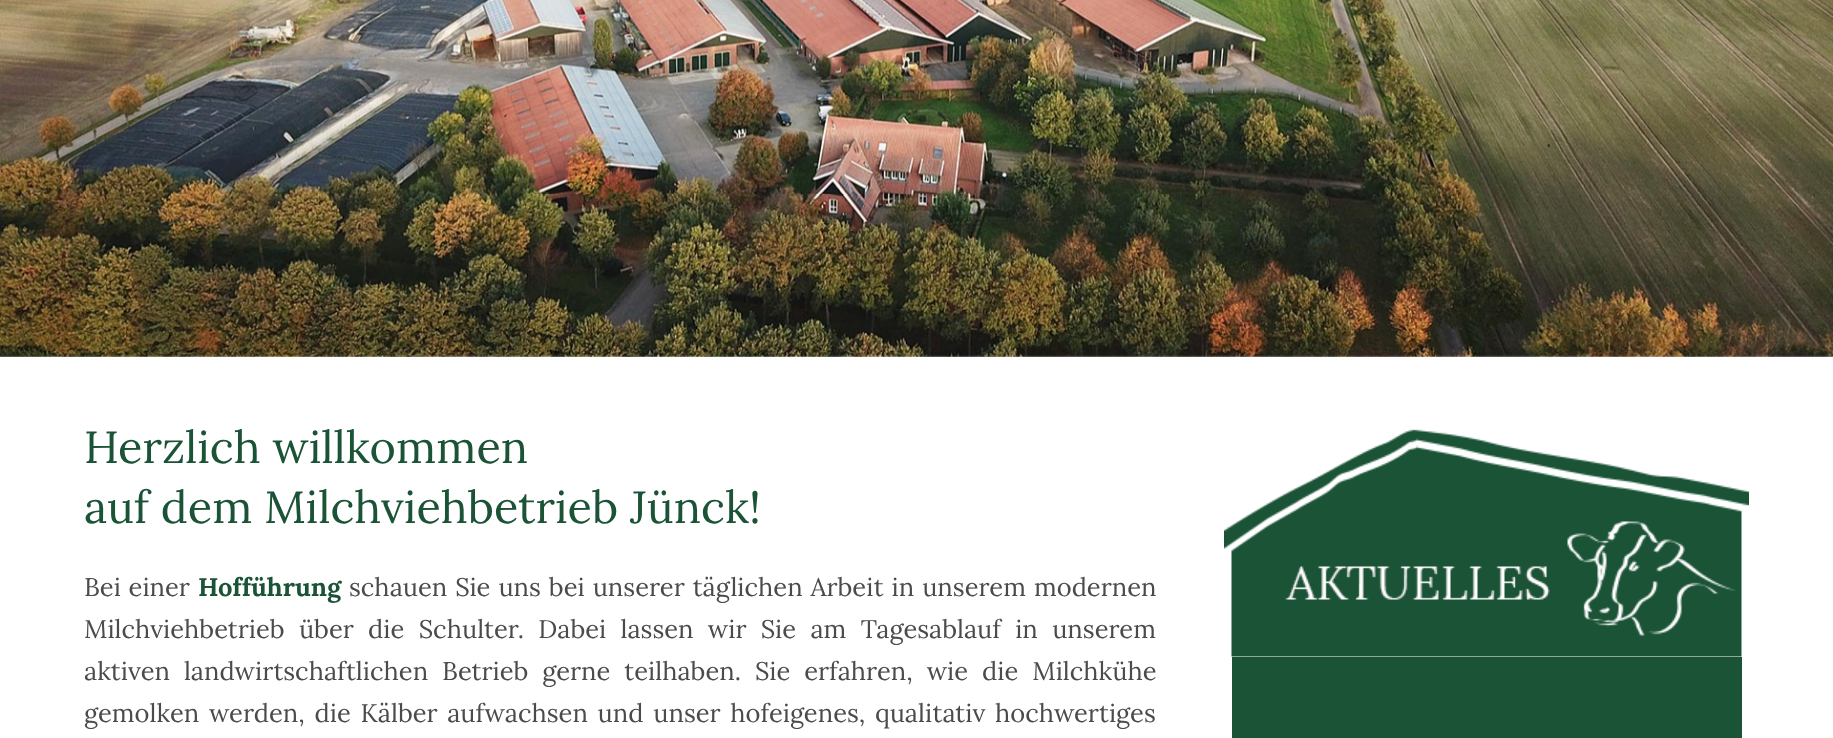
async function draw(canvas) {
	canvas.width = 1833;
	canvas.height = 738;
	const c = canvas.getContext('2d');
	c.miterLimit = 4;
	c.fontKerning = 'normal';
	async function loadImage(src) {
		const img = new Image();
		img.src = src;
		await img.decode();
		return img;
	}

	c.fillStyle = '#fff';
	c.fillRect(0, 0, 1833, 738);
	c.drawImage(await loadImage('img1.png'), 0, 0, 1833, 357);
	c.font = '45px Lora';
	c.fillStyle = '#1b5336';
	c.fillText('Herzlich willkommen', 84, 463);
	c.fillText('auf dem Milchviehbetrieb Jünck!', 84, 523);
	c.wordSpacing = '1px';
	c.font = '25.5px Lora';
	c.fillStyle = '#4b4b4b';
	c.fillText('Bei einer', 84, 596);
	c.wordSpacing = '0px';
	c.font = 'bold 25.5px Lora';
	c.fillStyle = '#1b5336';
	c.fillText('Hofführung', 198, 596);
	c.wordSpacing = '1.25px';
	c.font = '25.5px Lora';
	c.fillStyle = '#4b4b4b';
	c.fillText('schauen Sie uns bei unserer täglichen Arbeit in unserem modernen', 349, 596);
	c.wordSpacing = '7.6px';
	c.fillText('Milchviehbetrieb über die Schulter. Dabei lassen wir Sie am Tagesablauf in unserem', 84, 638);
	c.wordSpacing = '7.25px';
	c.fillText('aktiven landwirtschaftlichen Betrieb gerne teilhaben. Sie erfahren, wie die Milchkühe', 84, 680);
	c.wordSpacing = '3px';
	c.fillText('gemolken werden, die Kälber aufwachsen und unser hofeigenes, qualitativ hochwertiges', 84, 722);
	c.drawImage(await loadImage('img2.png'), 1224, 429, 525, 228);
	c.fillStyle = '#1b5336';
	c.fillRect(1232, 657, 510, 81);
}

draw(document.querySelector('canvas'));
